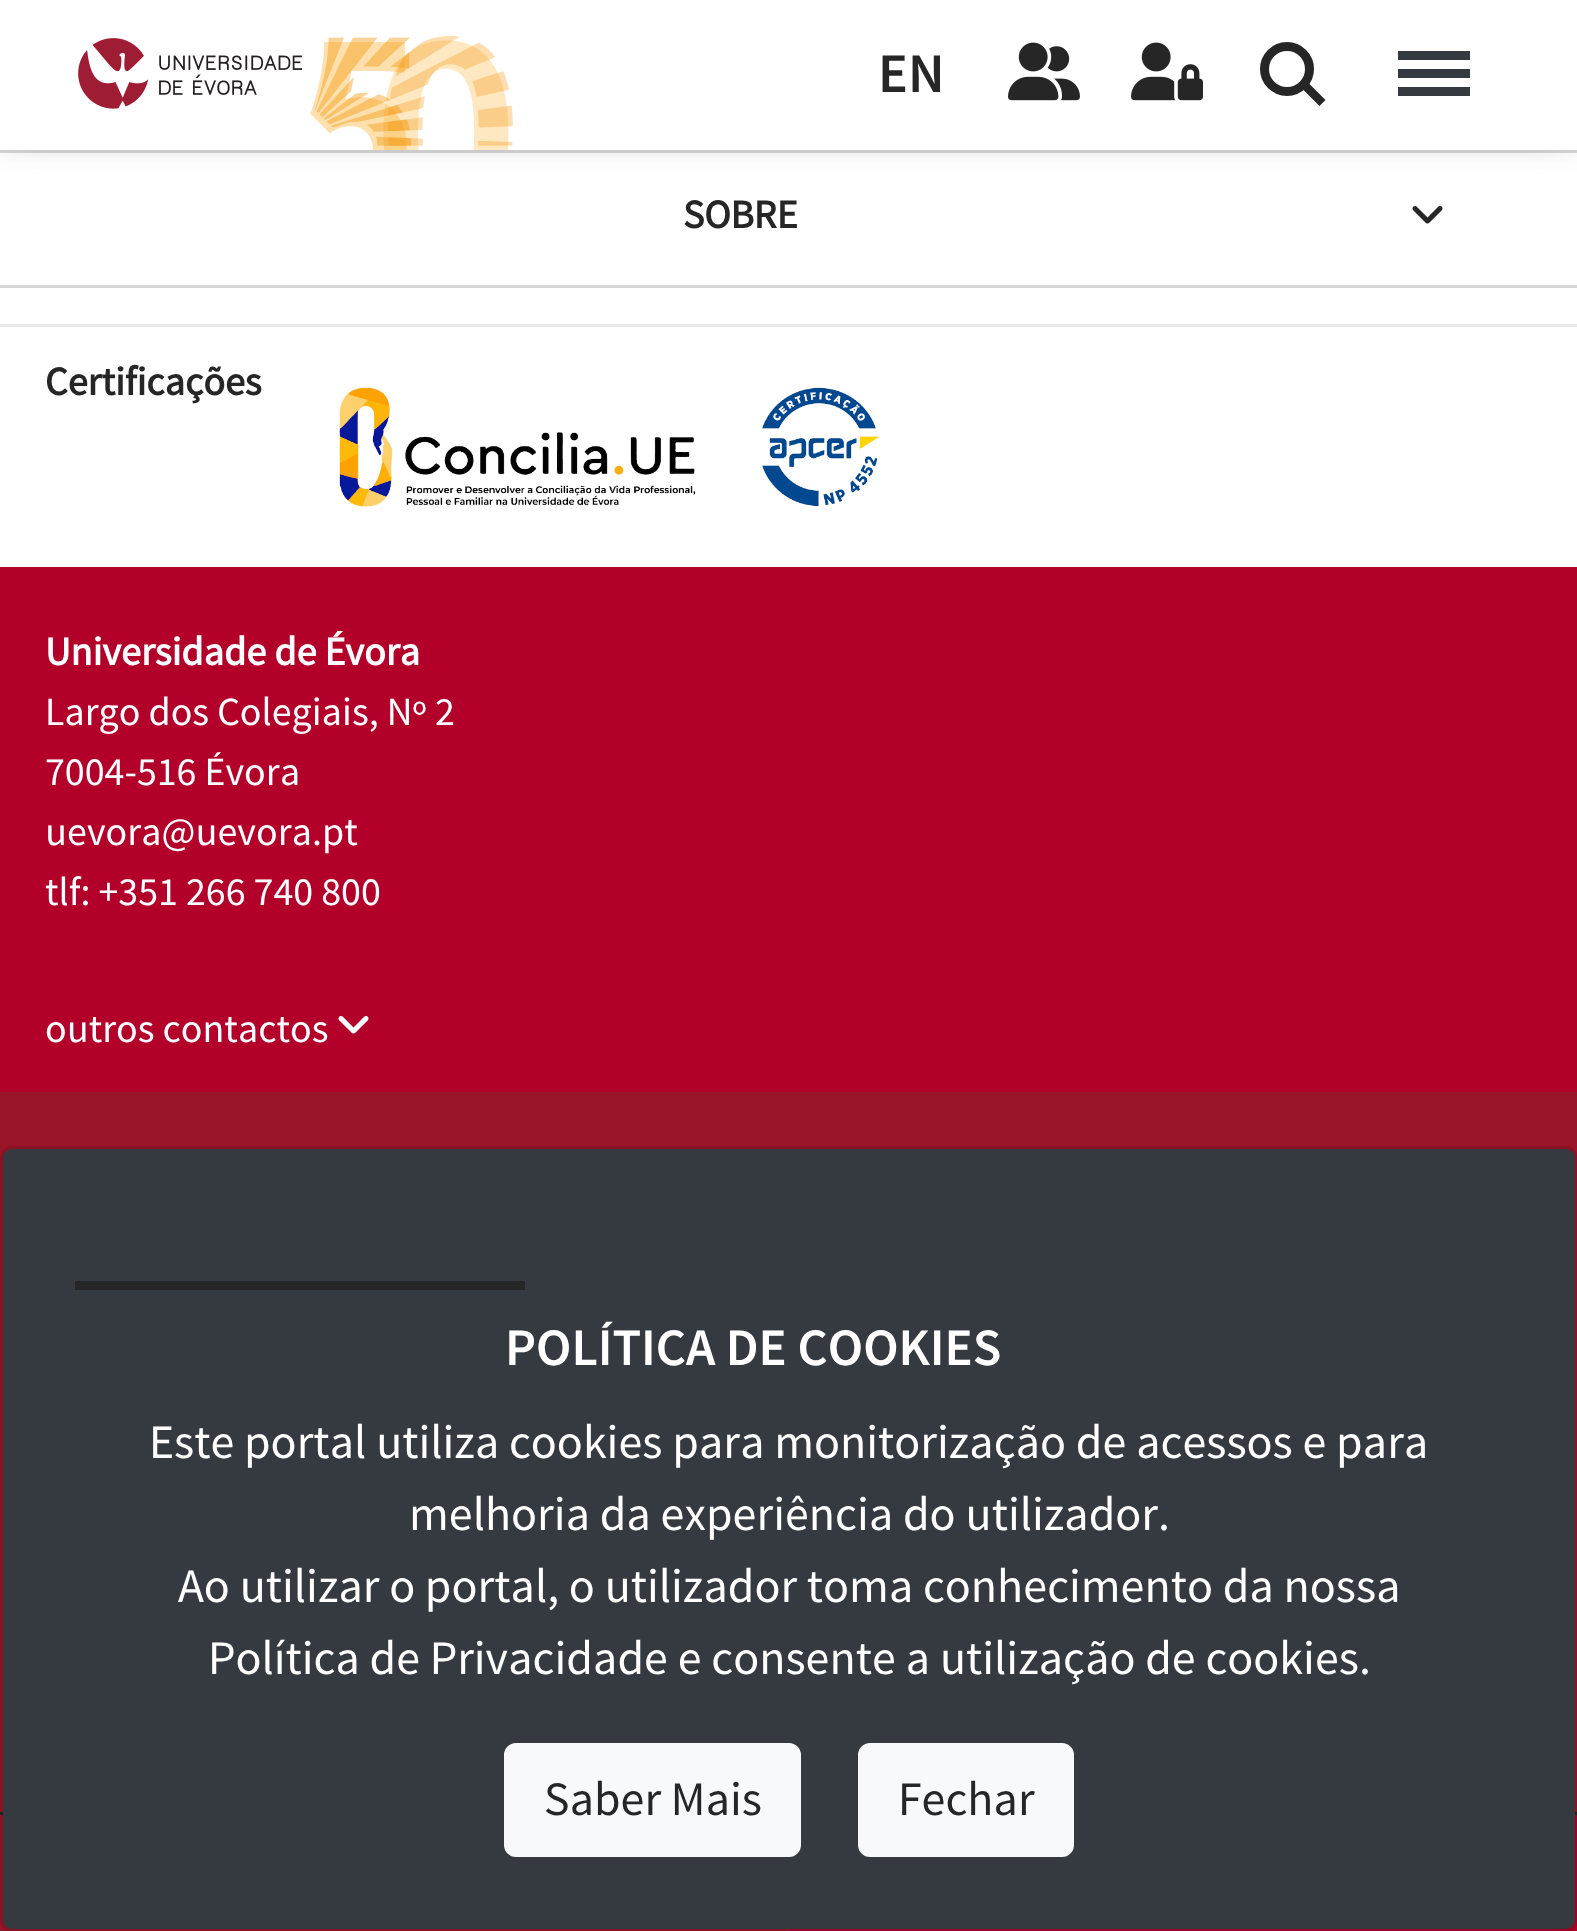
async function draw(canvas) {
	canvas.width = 1577;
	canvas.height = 1931;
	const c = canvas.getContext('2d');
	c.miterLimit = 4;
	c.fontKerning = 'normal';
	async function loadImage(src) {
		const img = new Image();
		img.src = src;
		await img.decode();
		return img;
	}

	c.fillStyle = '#fff';
	c.fillRect(0, 0, 1577, 1931);
	c.fillStyle = '#d8d8d8';
	c.fillRect(0, 150, 1577, 3);
	c.fillStyle = '#333';
	c.filter = 'blur(22.5px)';
	c.beginPath();
	c.rect(0, -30, 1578, 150);
	c.fill();
	c.filter = 'none';
	c.fillStyle = '#fff';
	c.fillRect(0, 0, 1577, 150);
	c.drawImage(await loadImage('img1.png'), 78, 36, 435, 114);
	c.font = '600 56px Source Sans Pro';
	c.fillStyle = '#262626';
	c.fillText('EN', 878, 92);
	c.drawImage(await loadImage('img2.png'), 1008, 42, 72, 59);
	c.drawImage(await loadImage('img3.png'), 1131, 42, 72, 59);
	c.beginPath();
	c.arc(1287, 69, 22.5, 0, 2 * Math.PI);
	c.strokeStyle = '#262626';
	c.lineWidth = 9;
	c.stroke();
	c.beginPath();
	c.moveTo(1308.5, 83);
	c.lineTo(1325.5, 100);
	c.lineTo(1319.5, 106);
	c.lineTo(1302.5, 89);
	c.closePath();
	c.fill();
	for (const [x, y, w, h, color] of [
		[1398, 69, 72, 9, '#343a40'],
		[1398, 51, 72, 9, '#343a40'],
		[1398, 87, 72, 9, '#343a40'],
		[0, 285, 1577, 3, '#d8d8d8'],
	]) {
		c.fillStyle = color;
		c.fillRect(x, y, w, h);
	}
	c.font = 'bold 40px Source Sans Pro';
	c.fillStyle = '#262626';
	c.fillText('SOBRE', 683, 228);
	c.drawImage(await loadImage('img4.png'), 1412, 206, 31, 18);
	c.fillStyle = '#e9e9e9';
	c.fillRect(0, 324, 1577, 3);
	c.fillStyle = '#262626';
	c.fillText('Certificações', 45, 395);
	c.drawImage(await loadImage('img5.png'), 339, 387, 357, 120);
	c.drawImage(await loadImage('img6.png'), 762, 387, 118, 120);
	c.fillStyle = '#b3002a';
	c.fillRect(0, 567, 1577, 525);
	c.fillStyle = '#fff';
	c.fillText('Universidade de Évora', 45, 665);
	c.font = '40px Source Sans Pro';
	for (const [text, x, y] of [
		['Largo dos Colegiais, Nº 2', 45, 725],
		['7004-516 Évora', 45, 785],
		['uevora@uevora.pt', 45, 845],
		['tlf: +351 266 740 800', 45, 905],
		['outros contactos', 45, 1042],
	]) {
		c.fillText(text, x, y);
	}
	c.drawImage(await loadImage('img7.png'), 338, 1016, 31, 18);
	c.fillStyle = '#9b1528';
	c.fillRect(0, 1092, 1577, 839);
	c.fillStyle = '#b3002a';
	c.fillRect(789, 1815, 788, 116);
	c.fillStyle = '#343a40';
	c.beginPath();
	c.roundRect(3, 1149, 1572, 780, 9);
	c.fill();
	c.fillStyle = '#262626';
	c.fillRect(0, 1812, 3, 3);
	c.fillRect(1575, 1812, 2, 3);
	c.beginPath();
	c.roundRect(1.5, 1147.5, 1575, 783, 10.5);
	c.strokeStyle = '#0000001a';
	c.lineWidth = 3;
	c.stroke();
	c.fillRect(75, 1281, 450, 9);
	c.font = '600 52.75px Source Sans Pro';
	c.fillStyle = '#fff';
	c.fillText('POLÍTICA DE COOKIES', 505, 1365);
	c.font = '48px Source Sans Pro';
	for (const [text, x, y] of [
		['Este portal utiliza cookies para monitorização de acessos e para', 149, 1458],
		['melhoria da experiência do utilizador.', 409, 1530],
		['Ao utilizar o portal, o utilizador toma conhecimento da nossa', 178, 1602],
		['Política de Privacidade e consente a utilização de cookies.', 208, 1674],
	]) {
		c.fillText(text, x, y);
	}
	c.fillStyle = '#f8f9fa';
	c.beginPath();
	c.roundRect(505.5, 1744.5, 294, 111, 10.5);
	c.fill();
	c.strokeStyle = '#f8f9fa';
	c.stroke();
	c.fillStyle = '#262626';
	c.fillText('Saber Mais', 544, 1815);
	c.fillStyle = '#f8f9fa';
	c.beginPath();
	c.roundRect(859.5, 1744.5, 213, 111, 10.5);
	c.fill();
	c.stroke();
	c.fillStyle = '#262626';
	c.fillText('Fechar', 898, 1815);
}

draw(document.querySelector('canvas'));
